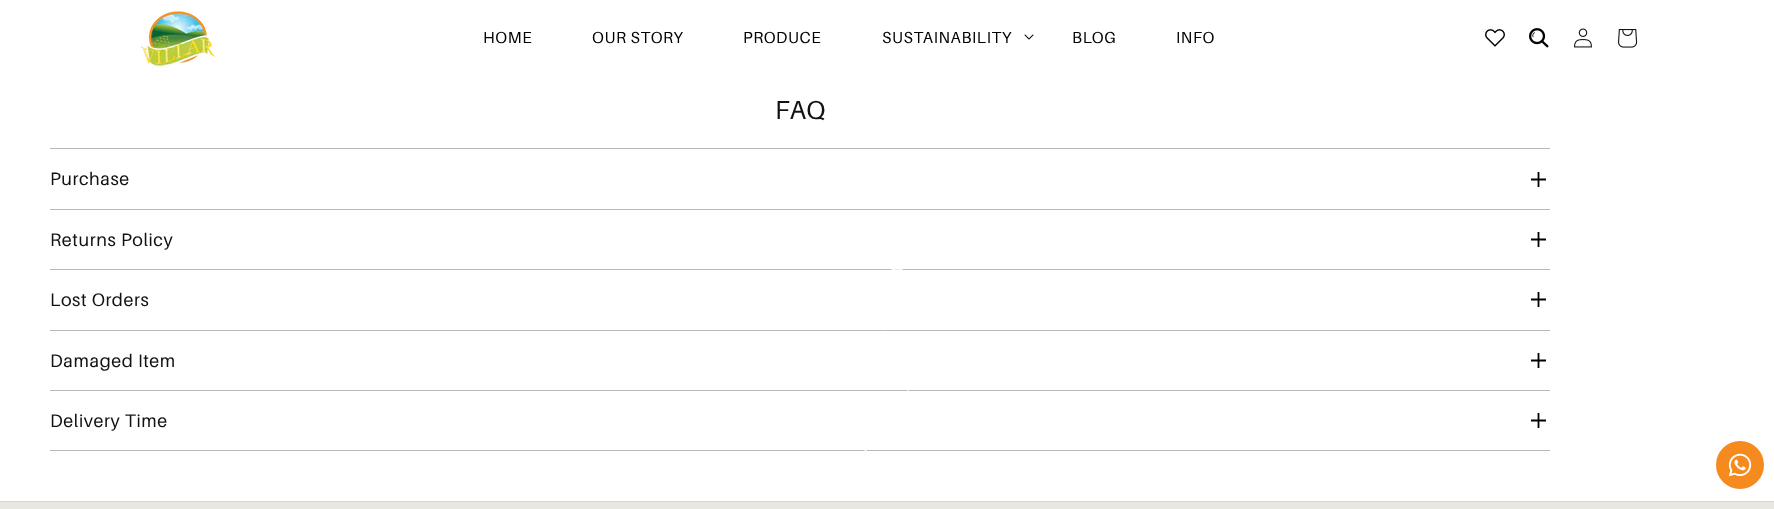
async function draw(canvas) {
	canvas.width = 1774;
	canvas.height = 509;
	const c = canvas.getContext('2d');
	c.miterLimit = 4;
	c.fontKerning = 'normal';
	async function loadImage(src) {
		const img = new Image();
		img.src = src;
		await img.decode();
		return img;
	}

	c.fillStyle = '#fff';
	c.fillRect(0, 0, 1774, 509);
	c.drawImage(await loadImage('img1.png'), 140, 11, 75, 56);
	c.letterSpacing = '0.6px';
	c.font = '16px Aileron';
	c.fillStyle = '#000';
	for (const [text, x, y] of [
		['HOME', 483, 43],
		['OUR STORY', 592, 43],
		['PRODUCE', 743, 43],
		['SUSTAINABILITY', 882, 43],
	]) {
		c.fillText(text, x, y);
	}
	c.drawImage(await loadImage('img2.png'), 1024, 34, 10, 6);
	c.fillText('BLOG', 1072, 43);
	c.fillText('INFO', 1176, 43);
	c.drawImage(await loadImage('img3.png'), 1485, 29, 20, 18);
	c.drawImage(await loadImage('img4.png'), 1529, 28, 20, 20);
	c.drawImage(await loadImage('img5.png'), 1574, 28, 18, 20);
	c.drawImage(await loadImage('img6.png'), 1618, 29, 20, 19);
	c.font = '26px Aileron';
	c.fillStyle = '#121212';
	c.fillText('FAQ', 775, 119);
	c.fillStyle = '#bcb8b8';
	c.fillRect(50, 209, 1500, 1);
	c.fillRect(50, 148, 1500, 1);
	c.font = '18px Aileron';
	c.fillStyle = '#121212';
	c.fillText('Purchase', 50, 185);
	c.beginPath();
	c.moveTo(1531, 179.5);
	c.lineTo(1546, 179.5);
	c.moveTo(1538.5, 172);
	c.lineTo(1538.5, 187);
	c.strokeStyle = '#000';
	c.lineWidth = 1.8;
	c.stroke();
	c.fillStyle = '#bcb8b8';
	c.fillRect(50, 269, 1500, 1);
	c.fillStyle = '#121212';
	c.fillText('Returns Policy', 50, 246);
	c.beginPath();
	c.moveTo(1531, 239.5);
	c.lineTo(1546, 239.5);
	c.moveTo(1538.5, 232);
	c.lineTo(1538.5, 247);
	c.stroke();
	c.fillStyle = '#bcb8b8';
	c.fillRect(50, 330, 1500, 1);
	c.fillStyle = '#121212';
	c.fillText('Lost Orders', 50, 306);
	c.beginPath();
	c.moveTo(1531, 299.5);
	c.lineTo(1546, 299.5);
	c.moveTo(1538.5, 292);
	c.lineTo(1538.5, 307);
	c.stroke();
	c.fillStyle = '#bcb8b8';
	c.fillRect(50, 390, 1500, 1);
	c.fillStyle = '#121212';
	c.fillText('Damaged Item', 50, 367);
	c.beginPath();
	c.moveTo(1531, 360.5);
	c.lineTo(1546, 360.5);
	c.moveTo(1538.5, 353);
	c.lineTo(1538.5, 368);
	c.stroke();
	c.fillStyle = '#bcb8b8';
	c.fillRect(50, 450, 1500, 1);
	c.fillStyle = '#121212';
	c.fillText('Delivery Time', 50, 427);
	c.beginPath();
	c.moveTo(1531, 420.5);
	c.lineTo(1546, 420.5);
	c.moveTo(1538.5, 413);
	c.lineTo(1538.5, 428);
	c.stroke();
	c.fillStyle = '#ffffff33';
	c.beginPath();
	c.arc(897, 256, 14.5, 0, 2 * Math.PI);
	c.fill();
	c.beginPath();
	c.arc(897, 256, 14, 0, 2 * Math.PI);
	c.strokeStyle = '#fff';
	c.lineWidth = 1.2;
	c.stroke();
	c.beginPath();
	c.moveTo(862.5, 452.5);
	c.bezierCurveTo(931, 409.5, 910.5, 354.5, 878, 323);
	c.bezierCurveTo(851.5, 297.5, 894.5, 293, 897, 270.5);
	c.setLineDash([4.87, 4.87]);
	c.stroke();
	c.fillStyle = '#f58a1f';
	c.beginPath();
	c.arc(1740, 465, 24, 0, 2 * Math.PI);
	c.fill();
	c.drawImage(await loadImage('img7.png'), 1728, 453, 24, 24);
	c.fillStyle = '#e8e8e0';
	c.fillRect(0, 502, 1774, 7);
	c.fillStyle = '#d7d7d0';
	c.fillRect(0, 501, 1774, 1);
}

draw(document.querySelector('canvas'));
